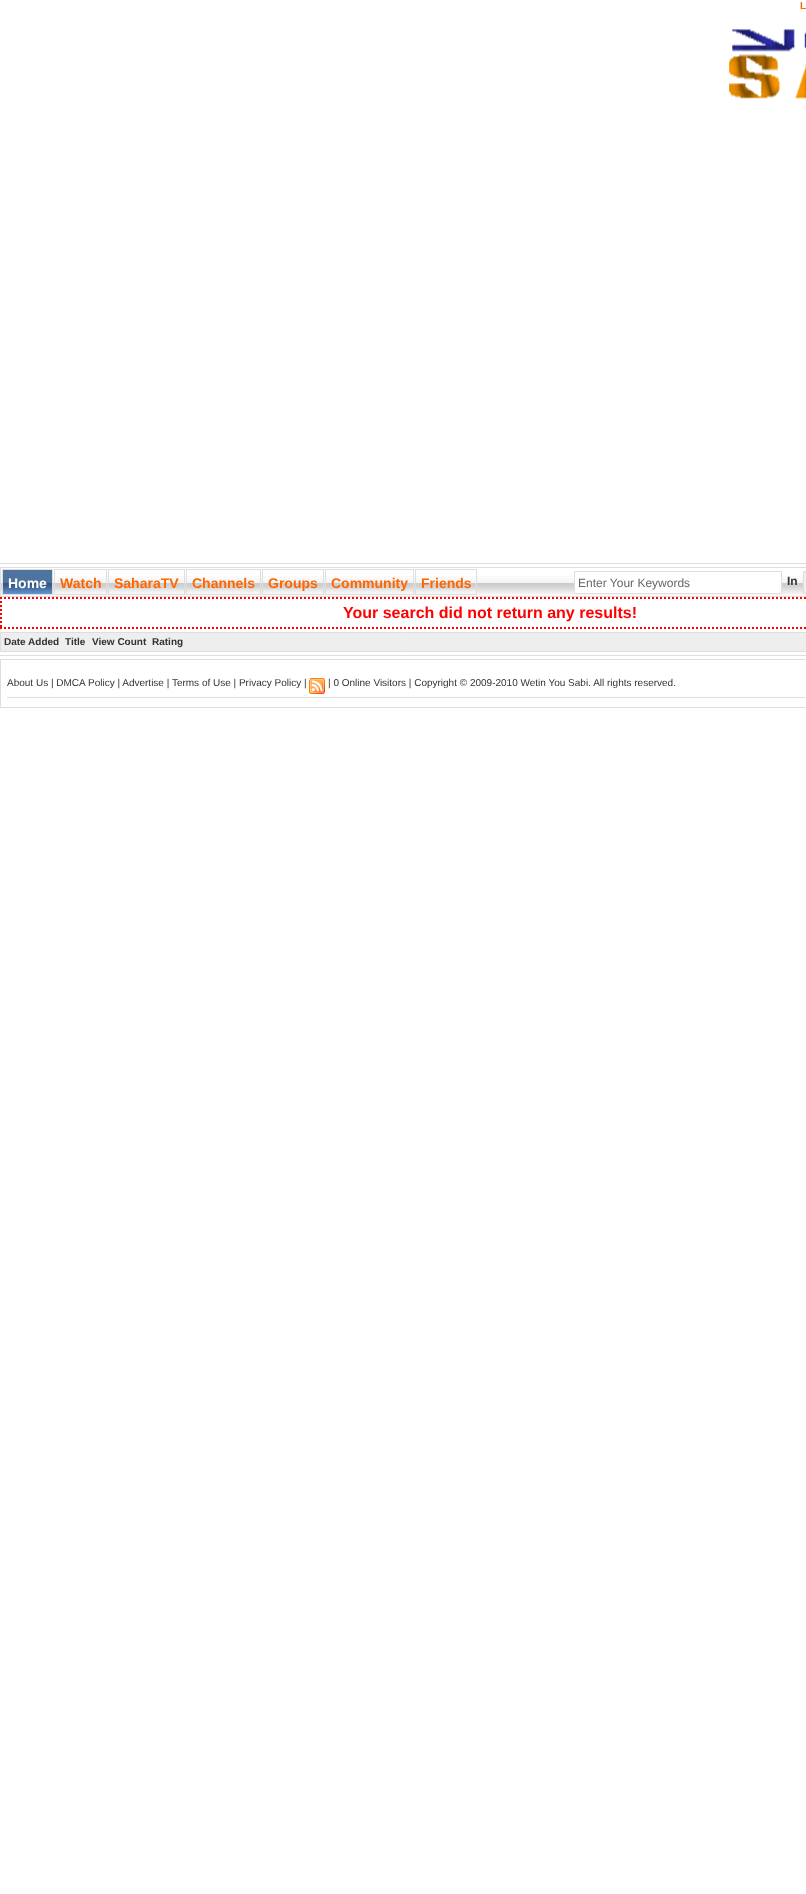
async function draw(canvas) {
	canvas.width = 806;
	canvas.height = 1894;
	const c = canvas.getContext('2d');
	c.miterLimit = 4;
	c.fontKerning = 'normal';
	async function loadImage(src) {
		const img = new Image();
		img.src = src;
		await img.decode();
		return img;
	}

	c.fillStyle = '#fff';
	c.fillRect(0, 0, 806, 1894);
	c.font = 'bold 10px Liberation Sans';
	c.fillStyle = '#f60';
	c.fillText('L', 800, 9);
	c.drawImage(await loadImage('img1.png'), 729, 29, 77, 70);
	c.fillStyle = '#dedede';
	c.fillRect(0, 563, 806, 1);
	c.drawImage(await loadImage('img2.png'), 1, 576, 805, 20);
	c.strokeStyle = '#dedede';
	c.strokeRect(0.5, 567.5, 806, 29);
	c.drawImage(await loadImage('img3.png'), 3, 570, 49, 24);
	c.strokeRect(2.5, 569.5, 50, 25);
	c.font = 'bold 14px Liberation Sans';
	c.fillStyle = '#fff';
	c.fillText('Home', 8, 588);
	c.drawImage(await loadImage('img4.png'), 55, 589, 51, 5);
	c.strokeRect(54.5, 569.5, 52, 25);
	c.fillStyle = '#f60';
	c.fillText('Watch', 60, 588);
	c.drawImage(await loadImage('img5.png'), 109, 589, 75, 5);
	c.strokeRect(108.5, 569.5, 76, 25);
	c.fillText('SaharaTV', 114, 588);
	c.drawImage(await loadImage('img6.png'), 187, 589, 73, 5);
	c.strokeRect(186.5, 569.5, 74, 25);
	c.fillText('Channels', 192, 588);
	c.drawImage(await loadImage('img7.png'), 263, 589, 60, 5);
	c.strokeRect(262.5, 569.5, 61, 25);
	c.fillText('Groups', 268, 588);
	c.drawImage(await loadImage('img8.png'), 326, 589, 87, 5);
	c.strokeRect(325.5, 569.5, 88, 25);
	c.fillText('Community', 331, 588);
	c.drawImage(await loadImage('img7.png'), 416, 589, 60, 5);
	c.strokeRect(415.5, 569.5, 61, 25);
	c.fillText('Friends', 421, 588);
	c.fillStyle = '#fff';
	c.fillRect(575, 576, 206, 17);
	c.strokeRect(574.5, 571.5, 207, 22);
	c.font = '12px Liberation Sans';
	c.fillStyle = '#666';
	c.fillText('Enter Your Keywords', 578, 587);
	c.font = 'bold 12px Liberation Sans';
	c.fillStyle = '#333';
	c.fillText('In', 787, 585);
	c.fillStyle = '#efefef';
	c.beginPath();
	c.rect(803.5, 571.5, 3, 22);
	c.fill();
	c.stroke();
	c.beginPath();
	c.moveTo(0, 598);
	c.lineTo(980, 598);
	c.strokeStyle = '#f00';
	c.lineWidth = 2;
	c.setLineDash([2, 2]);
	c.stroke();
	c.beginPath();
	c.moveTo(0, 628);
	c.lineTo(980, 628);
	c.stroke();
	c.beginPath();
	c.moveTo(1, 597);
	c.lineTo(1, 629);
	c.stroke();
	c.font = 'bold 16px Liberation Sans';
	c.fillStyle = '#f00';
	c.fillText('Your search did not return any results!', 343, 618);
	c.fillStyle = '#eee';
	c.beginPath();
	c.rect(0.5, 632.5, 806, 19);
	c.fill();
	c.strokeStyle = '#dedede';
	c.lineWidth = 1;
	c.setLineDash([]);
	c.stroke();
	c.font = 'bold 10px Liberation Sans';
	c.fillStyle = '#333';
	for (const [text, x, y] of [
		['Date Added', 4, 645],
		['Title', 65, 645],
		['View Count', 92, 645],
		['Rating', 152, 645],
	]) {
		c.fillText(text, x, y);
	}
	c.fillStyle = '#dedede';
	c.fillRect(0, 655, 806, 1);
	c.strokeRect(0.5, 659.5, 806, 48);
	c.font = '10px Liberation Sans';
	c.fillStyle = '#333';
	c.fillText('About Us | DMCA Policy | Advertise | Terms of Use | Privacy Policy |', 7, 686);
	c.drawImage(await loadImage('img9.png'), 309, 678, 16, 16);
	c.fillText('| 0 Online Visitors | Copyright © 2009-2010 Wetin You Sabi. All rights reserved.', 328, 686);
	c.fillStyle = '#dedede';
	c.fillRect(7, 697, 799, 1);
}

draw(document.querySelector('canvas'));
